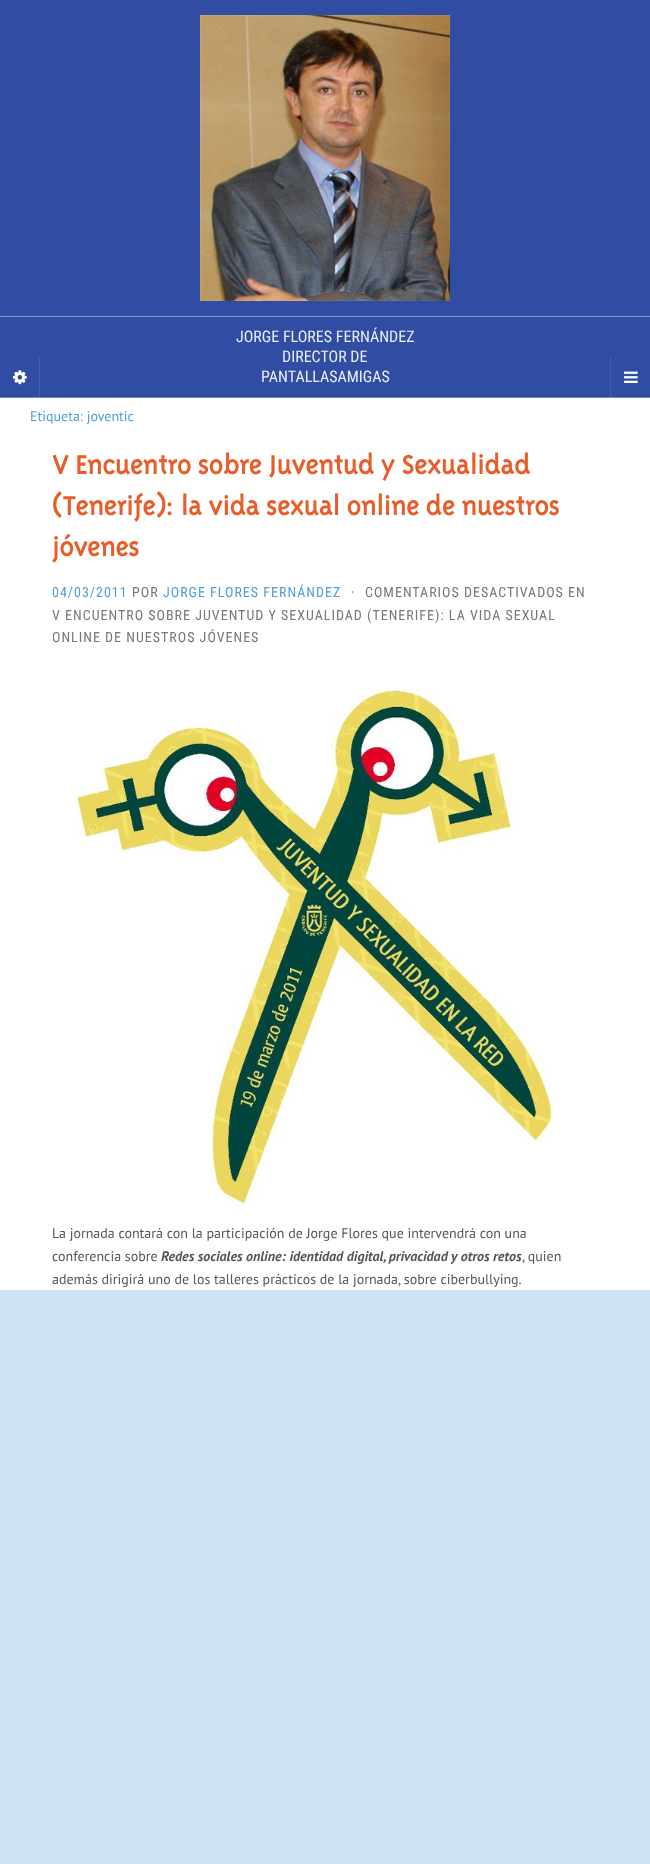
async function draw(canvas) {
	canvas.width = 650;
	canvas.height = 1864;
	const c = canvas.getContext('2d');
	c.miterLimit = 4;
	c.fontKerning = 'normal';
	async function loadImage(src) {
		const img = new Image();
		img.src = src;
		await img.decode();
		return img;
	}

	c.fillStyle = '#d0e3f2';
	c.fillRect(0, 0, 650, 1864);
	c.fillStyle = '#304da3';
	c.fillRect(0, 0, 650, 397);
	c.fillStyle = '#455fac';
	c.fillRect(39, 357, 1, 40);
	c.drawImage(await loadImage('img1.png'), 13, 370, 14, 15);
	c.fillStyle = '#6e82bf';
	c.fillRect(0, 397, 650, 1);
	c.fillStyle = '#8394c8';
	c.fillRect(0, 316, 650, 1);
	c.drawImage(await loadImage('img2.png'), 200, 15, 250, 286);
	c.font = '16px Roboto Condensed';
	c.fillStyle = '#eaedf6';
	for (const [text, x, y] of [
		['JORGE FLORES FERNÁNDEZ', 236, 342],
		['DIRECTOR DE', 282, 362],
		['PANTALLASAMIGAS', 261, 382],
	]) {
		c.fillText(text, x, y);
	}
	c.fillStyle = '#455fac';
	c.fillRect(610, 357, 1, 40);
	c.drawImage(await loadImage('img3.png'), 624, 371, 14, 12);
	c.fillStyle = '#fff';
	c.fillRect(0, 398, 650, 892);
	c.font = '14px PT Sans';
	c.fillStyle = '#4c9edc';
	c.fillText('Etiqueta: joventic', 30, 421);
	c.font = 'bold 30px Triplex';
	c.fillStyle = '#e75e2b';
	for (const [text, x, y] of [
		['V Encuentro sobre Juventud y Sexualidad', 52, 474],
		['(Tenerife): la vida sexual online de nuestros', 52, 515],
		['jóvenes', 52, 556],
	]) {
		c.fillText(text, x, y);
	}
	c.letterSpacing = '1px';
	c.font = '14px Roboto Condensed';
	c.fillStyle = '#4c9edc';
	c.fillText('04/03/2011', 52, 597);
	c.fillStyle = '#777';
	c.fillText('POR', 132, 597);
	c.fillStyle = '#4c9edc';
	c.fillText('JORGE FLORES FERNÁNDEZ', 163, 597);
	c.fillStyle = '#777';
	for (const [text, x, y] of [
		['·', 351, 597],
		['COMENTARIOS DESACTIVADOS EN', 365, 597],
		['V ENCUENTRO SOBRE JUVENTUD Y SEXUALIDAD (TENERIFE): LA VIDA SEXUAL', 52, 620],
		['ONLINE DE NUESTROS JÓVENES', 52, 642],
	]) {
		c.fillText(text, x, y);
	}
	c.drawImage(await loadImage('img4.png'), 75, 688, 485, 525);
	c.letterSpacing = '0px';
	c.font = '14px PT Sans';
	c.fillStyle = '#555';
	c.fillText('La jornada contará con la participación de Jorge Flores que intervendrá con una', 52, 1238);
	c.fillText('conferencia sobre', 52, 1261);
	c.font = 'italic bold 14px PT Sans';
	c.fillText('Redes sociales online: identidad digital, privacidad y otros retos', 161, 1261);
	c.font = '14px PT Sans';
	c.fillText(', quien', 522, 1261);
	c.fillText('además dirigirá uno de los talleres prácticos de la jornada, sobre ciberbullying.', 52, 1284);
}

draw(document.querySelector('canvas'));
